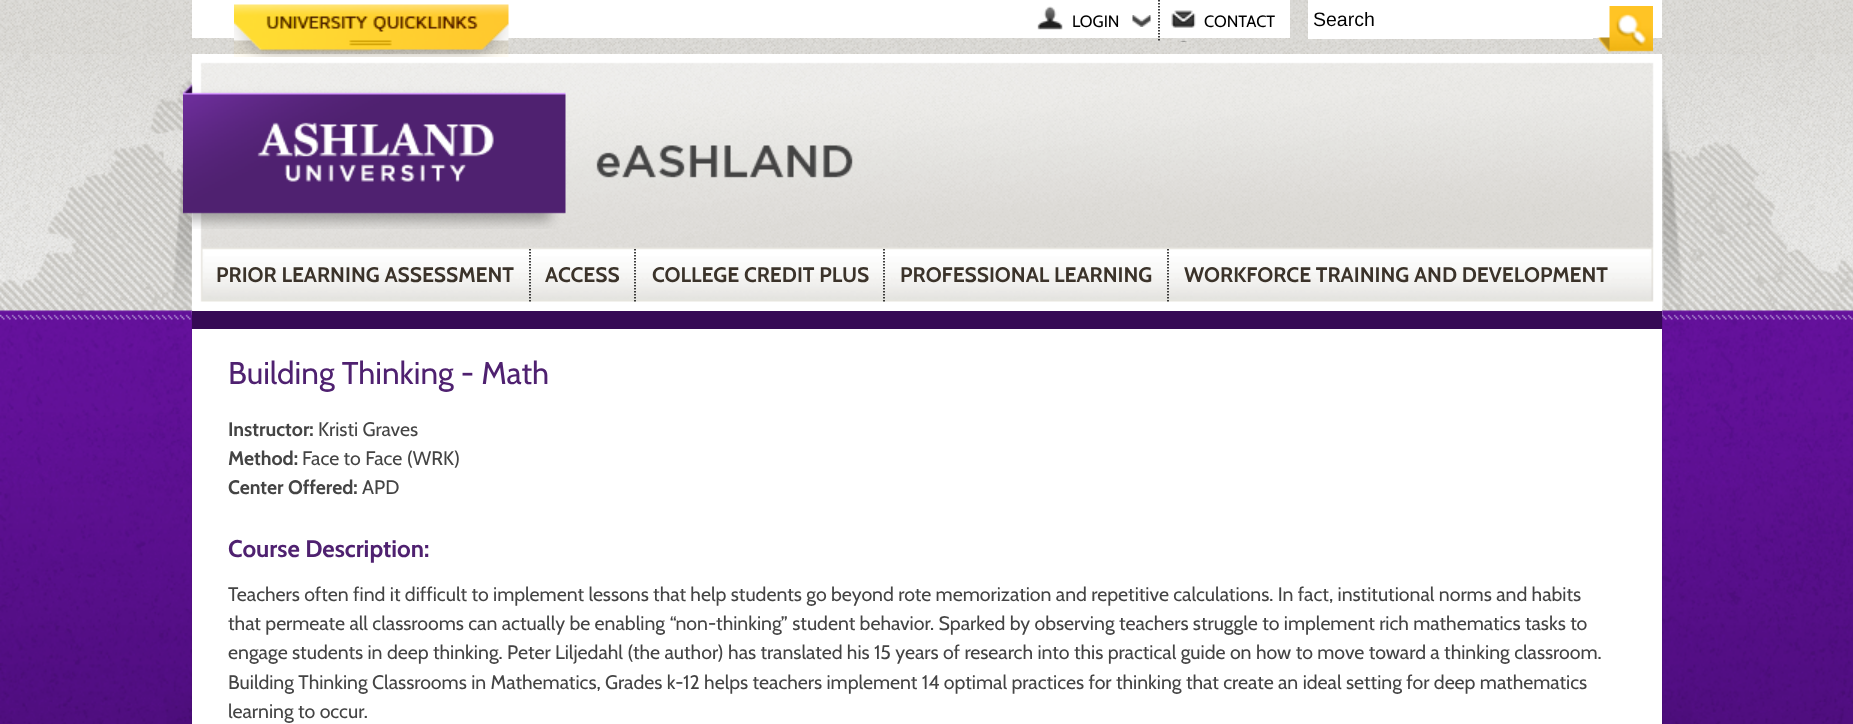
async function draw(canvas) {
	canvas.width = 1853;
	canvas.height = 724;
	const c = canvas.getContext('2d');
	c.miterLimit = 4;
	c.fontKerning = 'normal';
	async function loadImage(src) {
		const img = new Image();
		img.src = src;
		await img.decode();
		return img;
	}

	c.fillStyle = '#fff';
	c.fillRect(0, 0, 1853, 724);
	c.drawImage(await loadImage('img1.png'), 0, 54, 1853, 670);
	c.drawImage(await loadImage('img2.png'), 0, 0, 1853, 54);
	c.fillRect(192, 0, 1098, 38);
	c.drawImage(await loadImage('img8.png'), 192, 54, 1470, 257);
	c.drawImage(await loadImage('img3.png'), 234, 4, 275, 53);
	c.drawImage(await loadImage('img4.png'), 1037, 6, 26, 24);
	c.drawImage(await loadImage('img5.png'), 1132, 15, 19, 12);
	c.font = '16.5px Cabin';
	c.fillStyle = '#000';
	c.fillText('LOGIN', 1072, 27);
	c.drawImage(await loadImage('img6.png'), 1171, 10, 25, 32);
	c.beginPath();
	c.moveTo(1159, 0);
	c.lineTo(1159, 42);
	c.strokeStyle = '#000';
	c.lineWidth = 1.5;
	c.setLineDash([1.5, 1.5]);
	c.stroke();
	c.fillText('CONTACT', 1204, 27);
	c.fillStyle = '#fff';
	c.fillRect(1308, 0, 354, 38);
	c.fillRect(1308, 38, 285, 1);
	c.font = '19.5px Liberation Sans';
	c.fillStyle = '#000';
	c.fillText('Search', 1313, 26);
	c.drawImage(await loadImage('img7.png'), 1597, 6, 56, 47);
	c.drawImage(await loadImage('img9.png'), 183, 84, 383, 145);
	c.drawImage(await loadImage('img10.png'), 596, 145, 257, 33);
	c.font = 'bold 21px Cabin';
	c.fillStyle = '#3b332a';
	c.fillText('PRIOR LEARNING ASSESSMENT', 216, 282);
	c.beginPath();
	c.moveTo(530, 249);
	c.lineTo(530, 301.5);
	c.stroke();
	c.fillText('ACCESS', 545, 282);
	c.beginPath();
	c.moveTo(635, 249);
	c.lineTo(635, 301.5);
	c.stroke();
	c.fillText('COLLEGE CREDIT PLUS', 652, 282);
	c.beginPath();
	c.moveTo(884, 249);
	c.lineTo(884, 301.5);
	c.stroke();
	c.fillText('PROFESSIONAL LEARNING', 900, 282);
	c.beginPath();
	c.moveTo(1168, 249);
	c.lineTo(1168, 301.5);
	c.stroke();
	c.fillText('WORKFORCE TRAINING AND DEVELOPMENT', 1184, 282);
	c.fillStyle = '#fff';
	c.fillRect(192, 329, 1470, 395);
	c.fillStyle = '#350954';
	c.fillRect(192, 311, 1470, 18);
	c.font = '31.5px Cabin';
	c.fillStyle = '#4f2170';
	c.fillText('Building Thinking - Math', 228, 384);
	c.font = 'bold 19.5px Cabin';
	c.fillStyle = '#444';
	c.fillText('Instructor:', 228, 436);
	c.font = '19.5px Cabin';
	c.fillText('Kristi Graves', 318, 436);
	c.font = 'bold 19.5px Cabin';
	c.fillText('Method:', 228, 465);
	c.font = '19.5px Cabin';
	c.fillText('Face to Face (WRK)', 302, 465);
	c.font = 'bold 19.5px Cabin';
	c.fillText('Center Offered:', 228, 494);
	c.font = '19.5px Cabin';
	c.fillText('APD', 362, 494);
	c.font = 'bold 24px Cabin';
	c.fillStyle = '#4f2170';
	c.fillText('Course Description:', 228, 557);
	c.font = '19.5px Cabin';
	c.fillStyle = '#444';
	for (const [text, x, y] of [
		['Teachers often find it difficult to implement lessons that help students go beyond rote memorization and repetitive calculations. In fact, institutional norms and habits', 228, 601],
		['that permeate all classrooms can actually be enabling “non-thinking” student behavior. Sparked by observing teachers struggle to implement rich mathematics tasks to', 228, 630],
		['engage students in deep thinking. Peter Liljedahl (the author) has translated his 15 years of research into this practical guide on how to move toward a thinking classroom.', 228, 659],
		['Building Thinking Classrooms in Mathematics, Grades k-12 helps teachers implement 14 optimal practices for thinking that create an ideal setting for deep mathematics', 228, 689],
		['learning to occur.', 228, 718],
	]) {
		c.fillText(text, x, y);
	}
}

draw(document.querySelector('canvas'));
